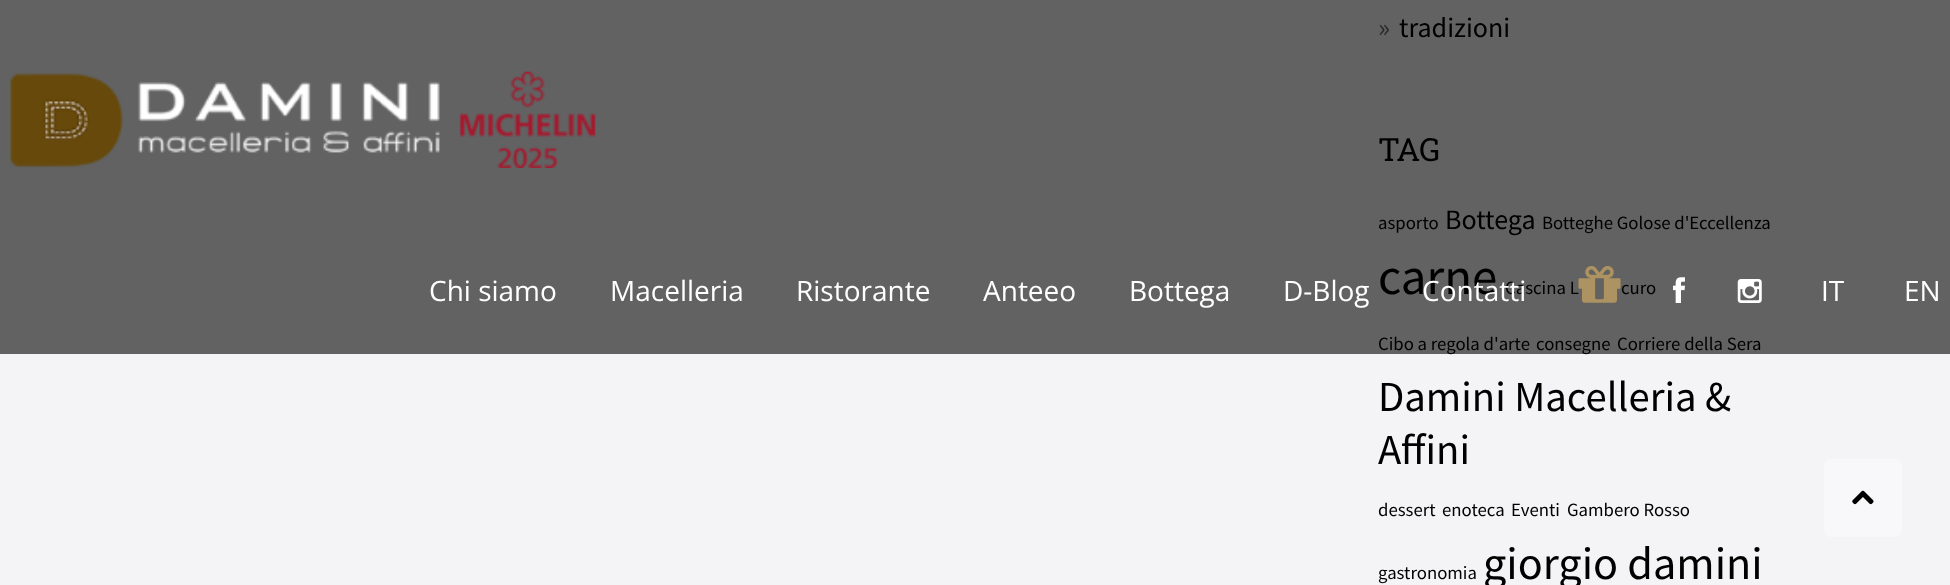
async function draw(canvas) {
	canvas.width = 1950;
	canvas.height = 585;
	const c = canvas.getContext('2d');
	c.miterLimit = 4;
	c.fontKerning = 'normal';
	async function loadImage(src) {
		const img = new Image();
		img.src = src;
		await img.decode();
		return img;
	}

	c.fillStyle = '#f4f4f6';
	c.fillRect(0, 0, 1950, 585);
	c.fillStyle = '#626262';
	c.fillRect(0, 0, 1950, 354);
	c.font = '28px Source Sans Pro';
	c.fillStyle = '#292929';
	c.fillText('»', 1378, 37);
	c.fillStyle = '#000';
	c.fillText('tradizioni', 1399, 37);
	c.font = '32px Roboto Slab';
	c.fillText('TAG', 1378, 161);
	c.font = '18.75px Source Sans Pro';
	c.fillText('asporto', 1378, 229);
	c.font = '28px Source Sans Pro';
	c.fillText('Bottega', 1445, 229);
	c.font = '18.75px Source Sans Pro';
	c.fillText('Botteghe Golose d\'Eccellenza', 1542, 229);
	c.font = '51px Source Sans Pro';
	c.fillText('carne', 1378, 294);
	c.font = '18.75px Source Sans Pro';
	for (const [text, x, y] of [
		['Cascina L', 1505, 294],
		['curo', 1621, 294],
		['Cibo a regola d\'arte', 1378, 350],
		['consegne', 1536, 350],
		['Corriere della Sera', 1617, 350],
	]) {
		c.fillText(text, x, y);
	}
	c.font = '42.75px Source Sans Pro';
	c.fillText('Damini Macelleria &', 1378, 411);
	c.fillText('Affini', 1378, 464);
	c.font = '18.75px Source Sans Pro';
	for (const [text, x, y] of [
		['dessert', 1378, 516],
		['enoteca', 1442, 516],
		['Eventi', 1511, 516],
		['Gambero Rosso', 1567, 516],
		['gastronomia', 1378, 579],
	]) {
		c.fillText(text, x, y);
	}
	c.font = '46.25px Source Sans Pro';
	c.fillText('giorgio damini', 1483, 579);
	c.drawImage(await loadImage('img1.png'), 10, 71, 586, 97);
	c.font = '28px Open Sans';
	c.fillStyle = '#fff';
	for (const [text, x, y] of [
		['Chi siamo', 429, 301],
		['Macelleria', 610, 301],
		['Ristorante', 796, 301],
		['Anteeo', 983, 301],
		['Bottega', 1129, 301],
		['D-Blog', 1283, 301],
		['Contatti', 1422, 301],
	]) {
		c.fillText(text, x, y);
	}
	c.drawImage(await loadImage('img2.png'), 1578, 266, 43, 37);
	c.drawImage(await loadImage('img3.png'), 1673, 277, 12, 26);
	c.drawImage(await loadImage('img4.png'), 1737, 279, 25, 24);
	c.fillText('IT', 1821, 301);
	c.fillText('EN', 1904, 301);
	c.fillStyle = '#f8f8fa';
	c.beginPath();
	c.roundRect(1824, 459, 78, 78, 7);
	c.fill();
	c.drawImage(await loadImage('img5.png'), 1852, 490, 22, 15);
}

draw(document.querySelector('canvas'));
